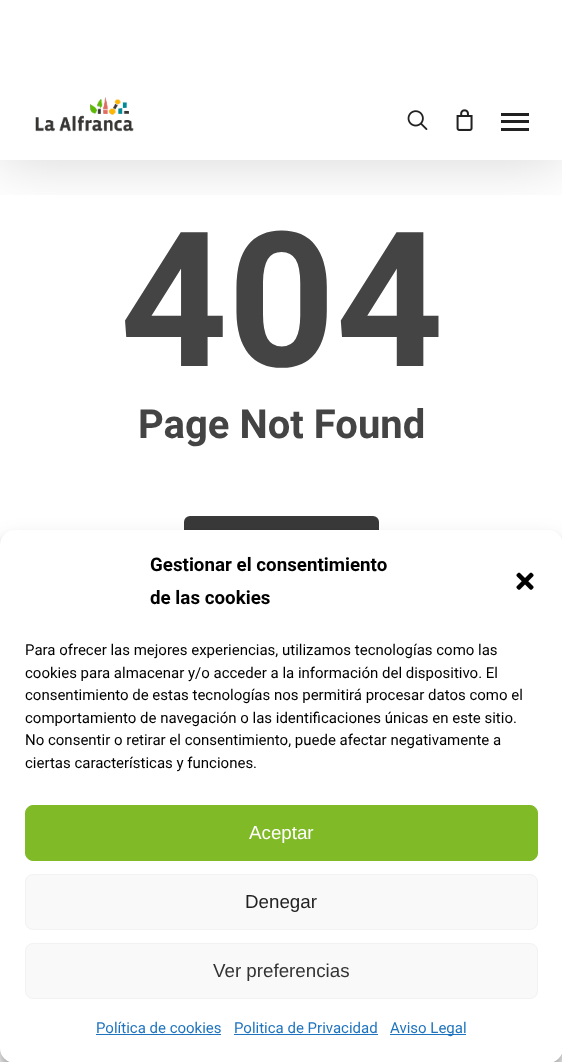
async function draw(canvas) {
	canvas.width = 562;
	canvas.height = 1062;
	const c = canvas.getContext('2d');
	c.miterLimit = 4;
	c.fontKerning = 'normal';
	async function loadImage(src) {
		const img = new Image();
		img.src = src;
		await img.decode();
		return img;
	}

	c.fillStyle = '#fff';
	c.fillRect(0, 0, 562, 1062);
	c.save();
	c.beginPath();
	c.rect(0, 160, 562, 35);
	c.clip();
	c.fillStyle = '#00000026';
	c.filter = 'blur(28px)';
	c.beginPath();
	c.rect(0, 4, 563, 160);
	c.fill();
	c.filter = 'none';
	c.restore();
	c.drawImage(await loadImage('img1.png'), 35, 97, 99, 35);
	c.drawImage(await loadImage('img2.png'), 407, 110, 21, 20);
	c.drawImage(await loadImage('img3.png'), 456, 109, 17, 22);
	for (const [x, y, w, h, color] of [
		[501, 113, 28, 3, '#212121'],
		[501, 128, 28, 3, '#212121'],
		[501, 120, 28, 3, '#212121'],
	]) {
		c.fillStyle = color;
		c.fillRect(x, y, w, h);
	}
	c.font = 'bold 188px Roboto';
	c.fillStyle = '#444';
	c.fillText('404', 120, 366);
	c.font = 'bold 40px Roboto';
	c.fillText('Page Not Found', 138, 438);
	c.fillStyle = '#393939';
	c.beginPath();
	c.roundRect(184, 516, 195, 63, 6);
	c.fill();
	c.fillStyle = '#0000003b';
	c.filter = 'blur(4px)';
	c.beginPath();
	c.roundRect(0, 538, 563, 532, 15);
	c.fill();
	c.filter = 'none';
	c.fillStyle = '#00000030';
	c.filter = 'blur(12.5px)';
	c.beginPath();
	c.roundRect(0, 543, 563, 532, 15);
	c.fill();
	c.filter = 'none';
	c.fillStyle = '#fff';
	c.beginPath();
	c.roundRect(0, 530, 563, 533, 15);
	c.fill();
	c.font = 'bold 18.75px Roboto';
	c.fillStyle = '#000';
	c.fillText('Gestionar el consentimiento', 150, 571);
	c.fillText('de las cookies', 150, 604);
	c.drawImage(await loadImage('img4.png'), 516, 572, 18, 18);
	c.font = '15px Roboto';
	for (const [text, x, y] of [
		['Para ofrecer las mejores experiencias, utilizamos tecnologías como las', 25, 655],
		['cookies para almacenar y/o acceder a la información del dispositivo. El', 25, 678],
		['consentimiento de estas tecnologías nos permitirá procesar datos como el', 25, 700],
		['comportamiento de navegación o las identificaciones únicas en este sitio.', 25, 723],
		['No consentir o retirar el consentimiento, puede afectar negativamente a', 25, 745],
		['ciertas características y funciones.', 25, 768],
	]) {
		c.fillText(text, x, y);
	}
	c.fillStyle = '#80ba27';
	c.beginPath();
	c.roundRect(25.5, 805.5, 512, 55, 7.5);
	c.fill();
	c.strokeStyle = '#80ba27';
	c.stroke();
	c.font = '18.75px Liberation Sans';
	c.fillStyle = '#fff';
	c.fillText('Aceptar', 249, 839);
	c.fillStyle = '#f9f9f9';
	c.beginPath();
	c.roundRect(25.5, 874.5, 512, 55, 7.5);
	c.fill();
	c.strokeStyle = '#f2f2f2';
	c.stroke();
	c.fillStyle = '#222';
	c.fillText('Denegar', 245, 908);
	c.fillStyle = '#f9f9f9';
	c.beginPath();
	c.roundRect(25.5, 943.5, 512, 55, 7.5);
	c.fill();
	c.stroke();
	c.fillStyle = '#333';
	c.fillText('Ver preferencias', 213, 977);
	c.font = '15px Roboto';
	c.fillStyle = '#1e73be';
	c.fillText('Política de cookies', 96, 1033);
	c.fillRect(96, 1034, 125, 1);
	c.fillText('Politica de Privacidad', 234, 1033);
	c.fillRect(234, 1034, 144, 1);
	c.fillRect(390, 1034, 76, 1);
	c.fillText('Aviso Legal', 390, 1033);
}

draw(document.querySelector('canvas'));
